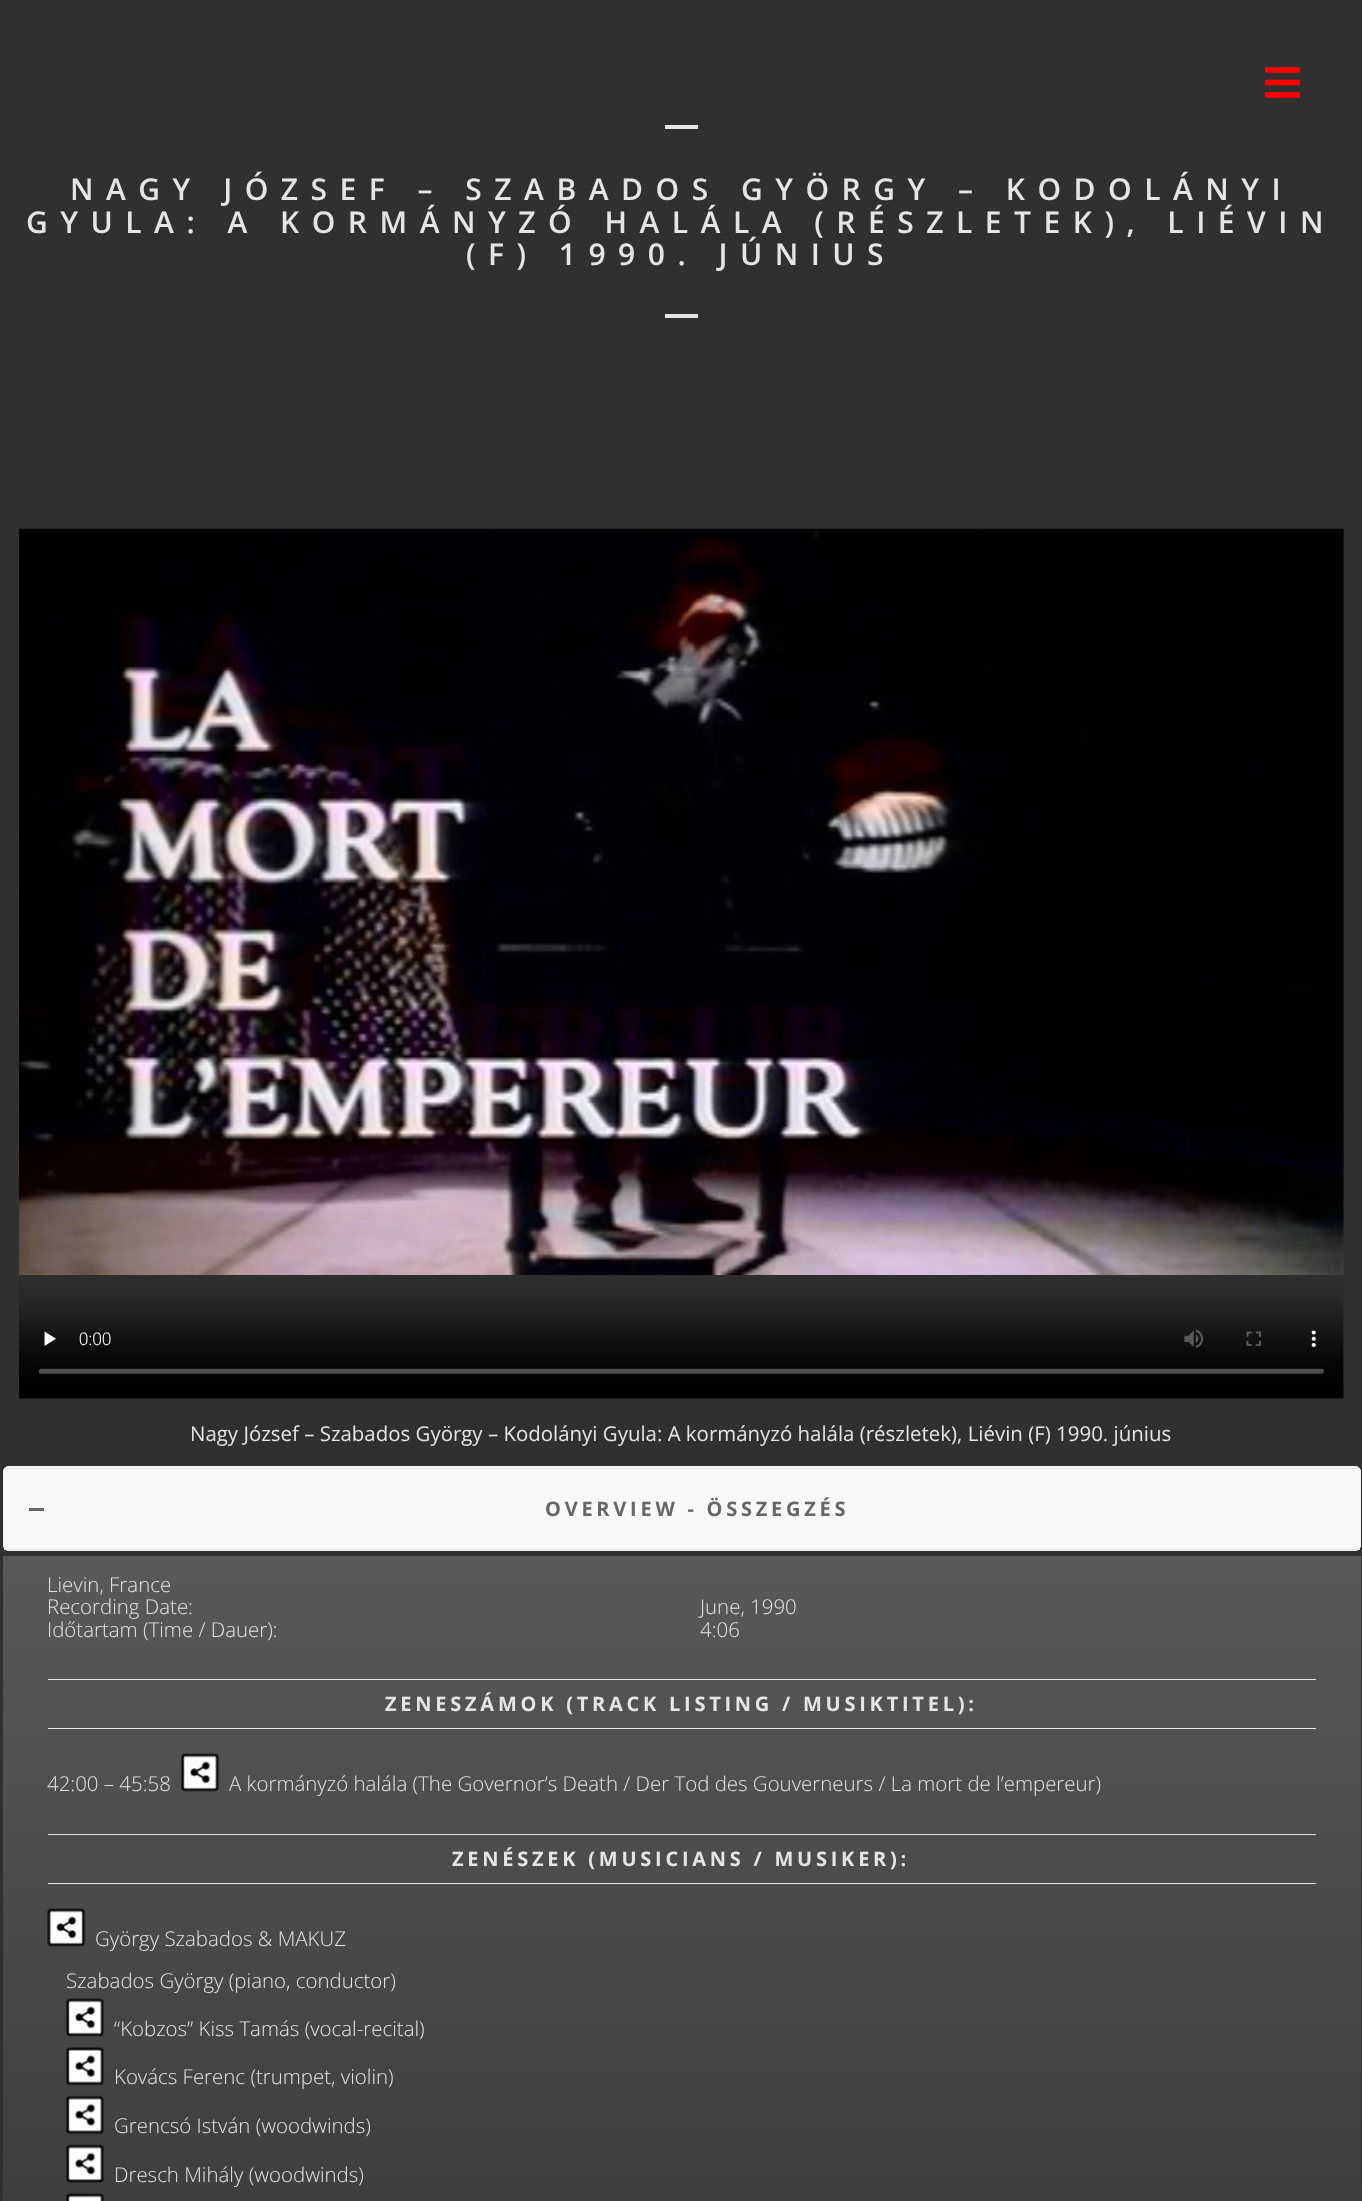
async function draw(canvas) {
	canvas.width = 1362;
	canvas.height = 2201;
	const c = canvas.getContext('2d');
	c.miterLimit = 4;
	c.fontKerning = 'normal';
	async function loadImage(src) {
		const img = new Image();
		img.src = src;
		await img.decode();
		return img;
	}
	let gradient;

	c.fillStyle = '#303030';
	c.fillRect(0, 0, 1362, 2201);
	c.drawImage(await loadImage('img1.png'), 1265, 67, 35, 31);
	c.fillStyle = '#e5e5e5';
	c.fillRect(665, 125, 33, 4);
	c.letterSpacing = '12.5px';
	c.font = '600 30px Open Sans';
	for (const [text, x, y] of [
		['NAGY JÓZSEF – SZABADOS GYÖRGY – KODOLÁNYI', 70, 200],
		['GYULA: A KORMÁNYZÓ HALÁLA (RÉSZLETEK), LIÉVIN', 26, 233],
		['(F) 1990. JÚNIUS', 466, 265],
	]) {
		c.fillText(text, x, y);
	}
	c.fillRect(665, 314, 33, 4);
	c.drawImage(await loadImage('img2.png'), 19, 528, 1325, 871);
	c.letterSpacing = '0px';
	c.font = '20.45px Open Sans';
	c.fillText('Nagy József – Szabados György – Kodolányi Gyula: A kormányzó halála (részletek), Liévin (F) 1990. június', 190, 1441);
	c.fillStyle = '#f8f8f8';
	c.beginPath();
	c.roundRect(3, 1466, 1358, 85, 6);
	c.fill();
	c.save();
	c.beginPath();
	c.roundRect(3, 1466, 1358, 85, 6);
	c.clip();
	gradient = c.createLinearGradient(682, 1468, 682, 1550);
	gradient.addColorStop(0, '#ffffff33');
	gradient.addColorStop(1, '#ffffff03');
	c.fillStyle = gradient;
	c.fillRect(3, 1469, 1358, 76);
	c.restore();
	c.beginPath();
	c.roundRect(3.5, 1466.5, 1357, 84, 5.5);
	c.strokeStyle = '#f0f0f0';
	c.stroke();
	for (const [x, y, w, h, color] of [
		[4, 1468, 1356, 1, '#e5e5e5'],
		[4, 1549, 1356, 1, '#e5e5e5'],
		[29, 1508, 15, 3, '#666'],
	]) {
		c.fillStyle = color;
		c.fillRect(x, y, w, h);
	}
	c.letterSpacing = '3.75px';
	c.font = 'bold 20px Open Sans';
	c.fillText('OVERVIEW - ÖSSZEGZÉS', 545, 1516);
	gradient = c.createLinearGradient(682, 1556, 682, 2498);
	gradient.addColorStop(0, '#595959');
	gradient.addColorStop(1, '#323232');
	c.fillStyle = gradient;
	c.fillRect(3, 1556, 1358, 645);
	c.letterSpacing = '0px';
	c.font = '300 20.45px Open Sans';
	c.fillStyle = '#e5e5e5';
	for (const [text, x, y] of [
		['Lievin, France', 47, 1592],
		['Recording Date:', 47, 1614],
		['June, 1990', 700, 1614],
		['Időtartam (Time / Dauer):', 47, 1637],
		['4:06', 700, 1637],
	]) {
		c.fillText(text, x, y);
	}
	c.fillRect(48, 1679, 1268, 1);
	c.fillRect(48, 1728, 1268, 1);
	c.letterSpacing = '3.75px';
	c.font = 'bold 20px Open Sans';
	c.fillText('ZENESZÁMOK (TRACK LISTING / MUSIKTITEL):', 385, 1711);
	c.letterSpacing = '0px';
	c.font = '300 20.45px Open Sans';
	c.fillText('42:00 – 45:58', 47, 1791);
	c.drawImage(await loadImage('img3.png'), 181, 1753, 39, 39);
	c.fillText('A kormányzó halála (The Governor’s Death / Der Tod des Gouverneurs / La mort de l’empereur)', 229, 1791);
	c.fillRect(48, 1834, 1268, 1);
	c.fillRect(48, 1883, 1268, 1);
	c.letterSpacing = '3.75px';
	c.font = 'bold 20px Open Sans';
	c.fillText('ZENÉSZEK (MUSICIANS / MUSIKER):', 452, 1866);
	c.drawImage(await loadImage('img4.png'), 47, 1908, 39, 39);
	c.letterSpacing = '0px';
	c.font = '300 20.45px Open Sans';
	c.fillText('György Szabados & MAKUZ', 95, 1946);
	c.fillText('Szabados György (piano, conductor)', 66, 1988);
	c.drawImage(await loadImage('img5.png'), 66, 1998, 38, 39);
	c.fillText('“Kobzos” Kiss Tamás (vocal-recital)', 114, 2036);
	c.drawImage(await loadImage('img6.png'), 66, 2047, 38, 39);
	c.fillText('Kovács Ferenc (trumpet, violin)', 114, 2084);
	c.drawImage(await loadImage('img7.png'), 66, 2095, 38, 40);
	c.fillText('Grencsó István (woodwinds)', 114, 2133);
	c.drawImage(await loadImage('img8.png'), 66, 2144, 38, 39);
	c.fillText('Dresch Mihály (woodwinds)', 114, 2182);
	c.drawImage(await loadImage('img9.png'), 66, 2193, 38, 8);
}

draw(document.querySelector('canvas'));
